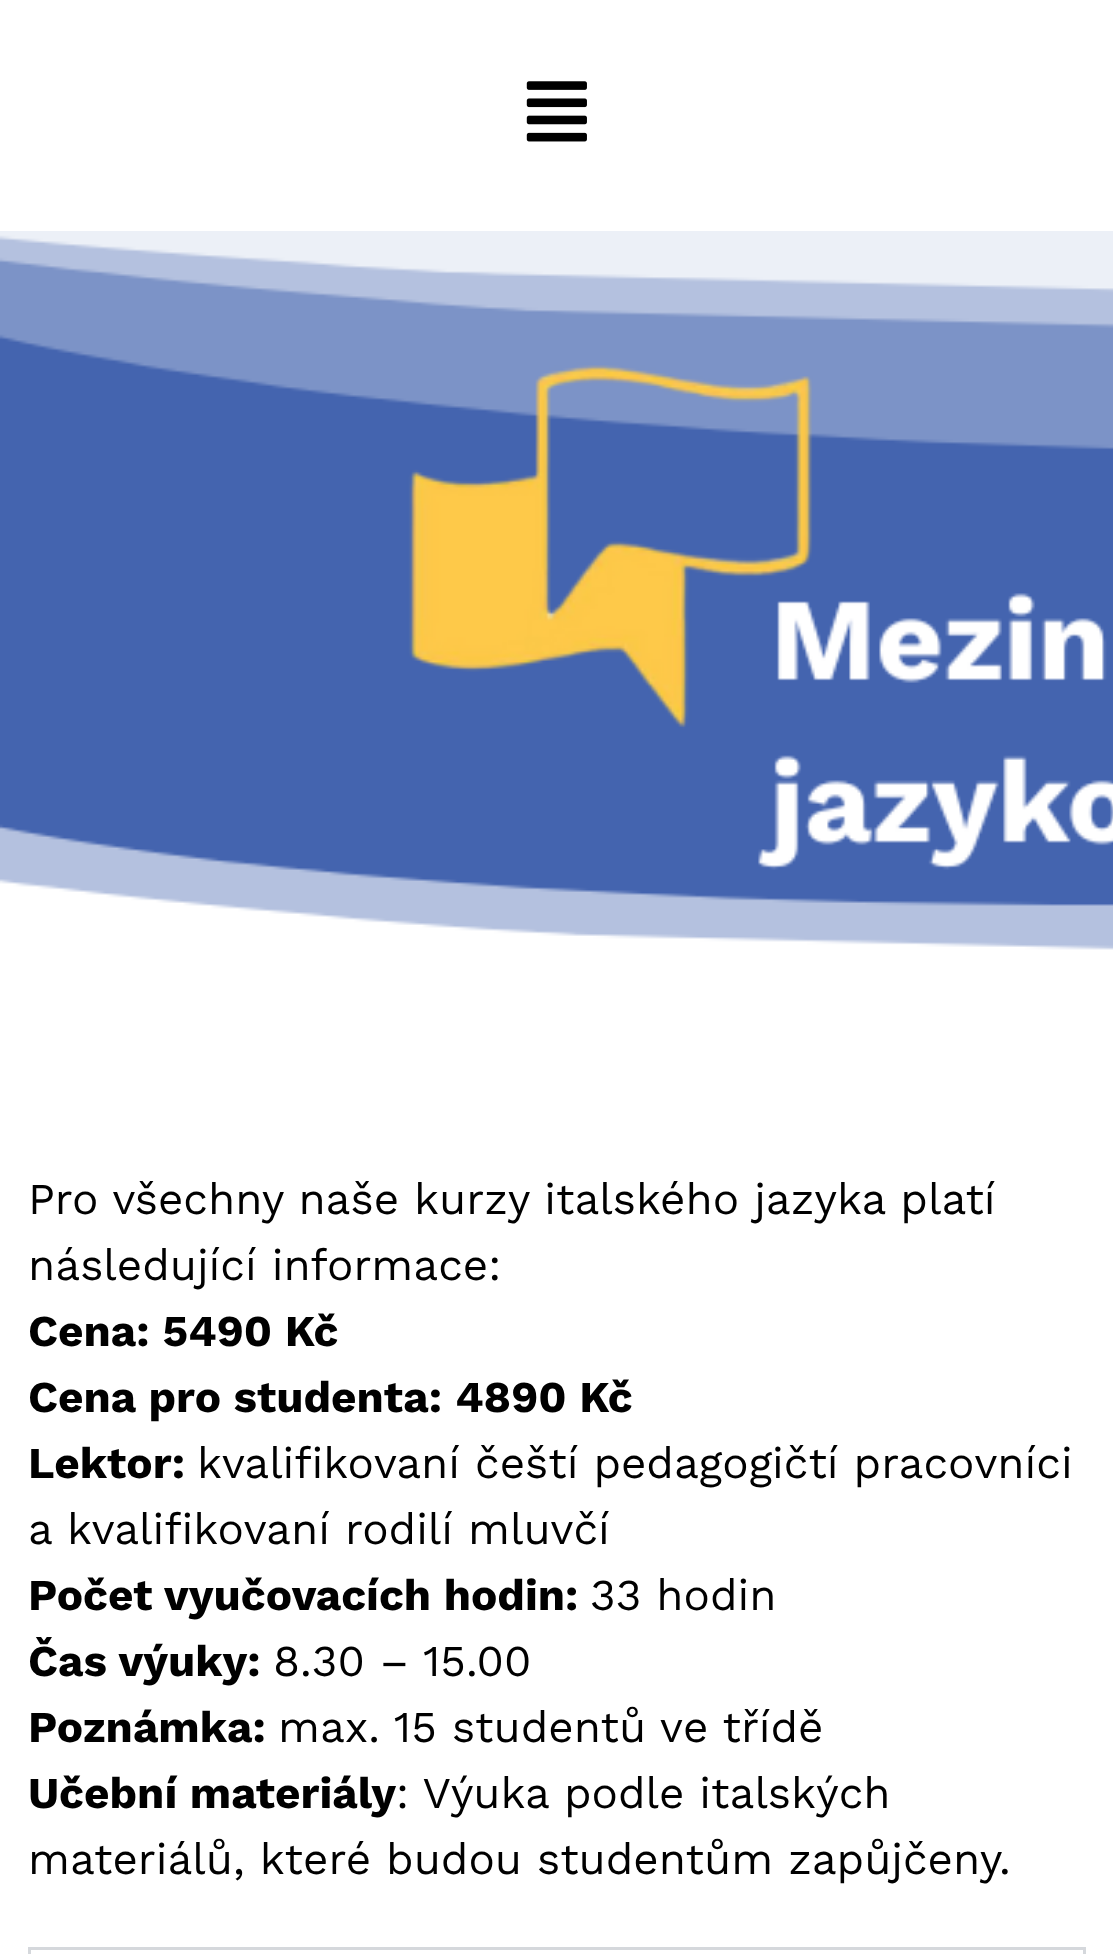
async function draw(canvas) {
	canvas.width = 1113;
	canvas.height = 1954;
	const c = canvas.getContext('2d');
	c.miterLimit = 4;
	c.fontKerning = 'normal';
	async function loadImage(src) {
		const img = new Image();
		img.src = src;
		await img.decode();
		return img;
	}

	c.fillStyle = '#fff';
	c.fillRect(0, 0, 1113, 1954);
	c.drawImage(await loadImage('img1.png'), 526, 81, 61, 61);
	c.drawImage(await loadImage('img2.png'), 0, 231, 1113, 719);
	c.font = '44px Work Sans';
	c.fillStyle = '#000';
	c.fillText('Pro všechny naše kurzy italského jazyka platí', 28, 1214);
	c.fillText('následující informace:', 28, 1280);
	c.font = 'bold 44px Work Sans';
	for (const [text, x, y] of [
		['Cena: 5490 Kč', 28, 1346],
		['Cena pro studenta: 4890 Kč', 28, 1412],
		['Lektor:', 28, 1478],
	]) {
		c.fillText(text, x, y);
	}
	c.font = '44px Work Sans';
	c.fillText('kvalifikovaní čeští pedagogičtí pracovníci', 197, 1478);
	c.fillText('a kvalifikovaní rodilí mluvčí', 28, 1544);
	c.font = 'bold 44px Work Sans';
	c.fillText('Počet vyučovacích hodin:', 28, 1610);
	c.font = '44px Work Sans';
	c.fillText('33 hodin', 590, 1610);
	c.font = 'bold 44px Work Sans';
	c.fillText('Čas výuky:', 28, 1676);
	c.font = '44px Work Sans';
	c.fillText('8.30 – 15.00', 273, 1676);
	c.font = 'bold 44px Work Sans';
	c.fillText('Poznámka:', 28, 1742);
	c.font = '44px Work Sans';
	c.fillText('max. 15 studentů ve třídě', 278, 1742);
	c.font = 'bold 44px Work Sans';
	c.fillText('Učební materiály', 28, 1808);
	c.font = '44px Work Sans';
	c.fillText(': Výuka podle italských', 396, 1808);
	c.fillText('materiálů, které budou studentům zapůjčeny.', 28, 1874);
	c.strokeStyle = '#d5d8dc';
	c.lineWidth = 3;
	c.strokeRect(29.5, 1948.5, 1055, 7);
}

draw(document.querySelector('canvas'));
